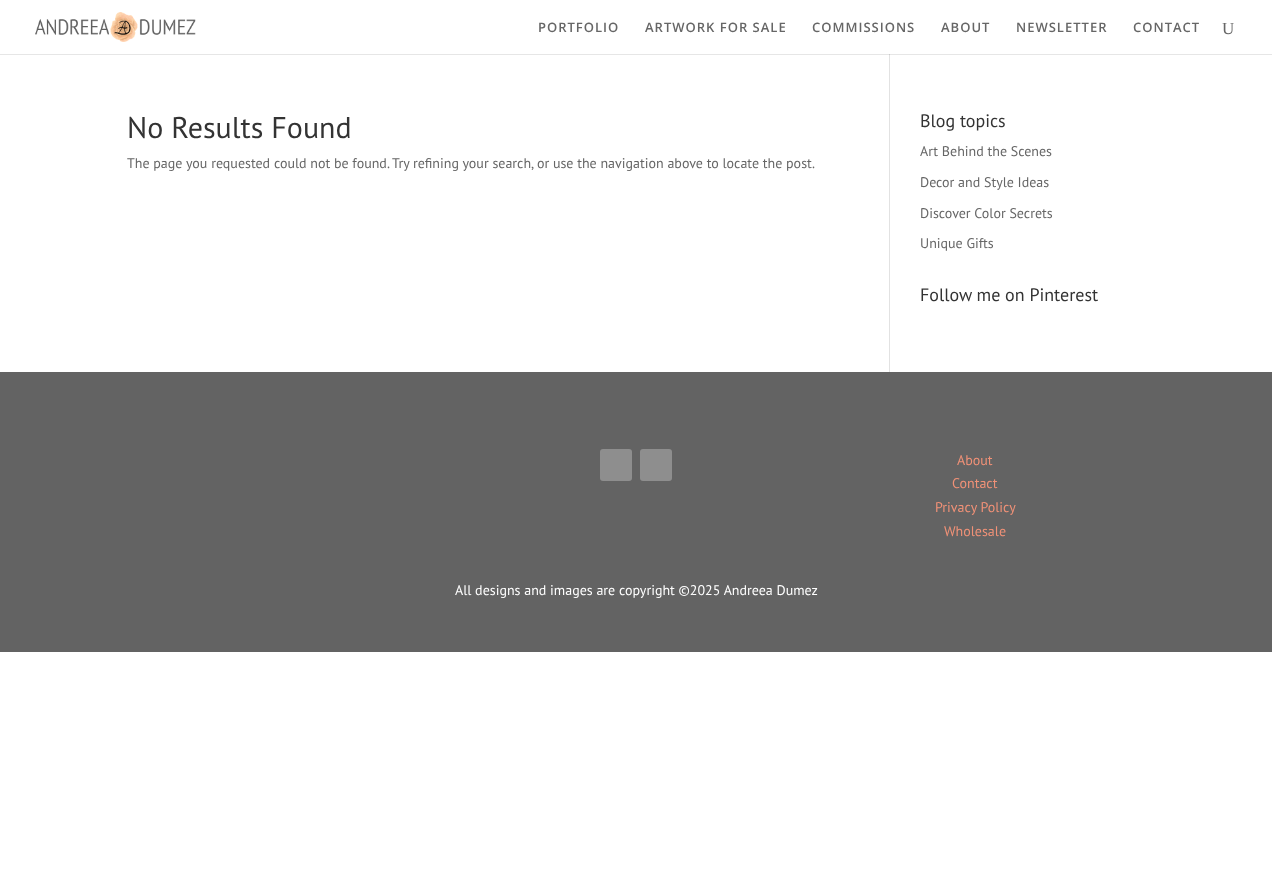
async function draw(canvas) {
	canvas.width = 1272;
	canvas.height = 881;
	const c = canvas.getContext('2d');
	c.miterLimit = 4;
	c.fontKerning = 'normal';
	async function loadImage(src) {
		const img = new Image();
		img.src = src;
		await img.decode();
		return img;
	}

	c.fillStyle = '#fff';
	c.fillRect(0, 0, 1272, 881);
	c.fillStyle = '#e6e6e6';
	c.fillRect(0, 54, 1272, 1);
	c.drawImage(await loadImage('img1.png'), 35, 12, 161, 30);
	c.letterSpacing = '1px';
	c.font = '600 13px Open Sans';
	c.fillStyle = '#666';
	for (const [text, x, y] of [
		['PORTFOLIO', 538, 32],
		['ARTWORK FOR SALE', 645, 32],
		['COMMISSIONS', 812, 32],
		['ABOUT', 941, 32],
		['NEWSLETTER', 1016, 32],
		['CONTACT', 1133, 32],
	]) {
		c.fillText(text, x, y);
	}
	c.letterSpacing = '0px';
	c.font = '17px Liberation Serif';
	c.fillText('U', 1222, 34);
	c.fillStyle = '#e2e2e2';
	c.fillRect(889, 54, 1, 318);
	c.fillStyle = '#cbcbcb';
	c.fillRect(889, 54, 1, 1);
	c.font = '30px PT Sans';
	c.fillStyle = '#333';
	c.fillText('No Results Found', 127, 138);
	c.font = '14px PT Sans';
	c.fillStyle = '#666';
	c.fillText('The page you requested could not be found. Try refining your search, or use the navigation above to locate the post.', 127, 168);
	c.font = '18px PT Sans';
	c.fillStyle = '#333';
	c.fillText('Blog topics', 920, 127);
	c.font = '14px PT Sans';
	c.fillStyle = '#666';
	for (const [text, x, y] of [
		['Art Behind the Scenes', 920, 156],
		['Decor and Style Ideas', 920, 187],
		['Discover Color Secrets', 920, 218],
		['Unique Gifts', 920, 248],
	]) {
		c.fillText(text, x, y);
	}
	c.font = '18px PT Sans';
	c.fillStyle = '#333';
	c.fillText('Follow me on Pinterest', 920, 301);
	c.fillStyle = '#636363';
	c.fillRect(0, 372, 1272, 280);
	c.fillStyle = '#8e8e8e';
	c.beginPath();
	c.roundRect(600, 449, 32, 32, 3);
	c.fill();
	c.beginPath();
	c.roundRect(640, 449, 32, 32, 3);
	c.fill();
	c.font = '14px PT Sans';
	c.fillStyle = '#f09177';
	for (const [text, x, y] of [
		['About', 957, 465],
		['Contact', 952, 488],
		['Privacy Policy', 935, 512],
		['Wholesale', 944, 536],
	]) {
		c.fillText(text, x, y);
	}
	c.fillStyle = '#fff';
	c.fillText('All designs and images are copyright ©2025 Andreea Dumez', 455, 595);
}

draw(document.querySelector('canvas'));
